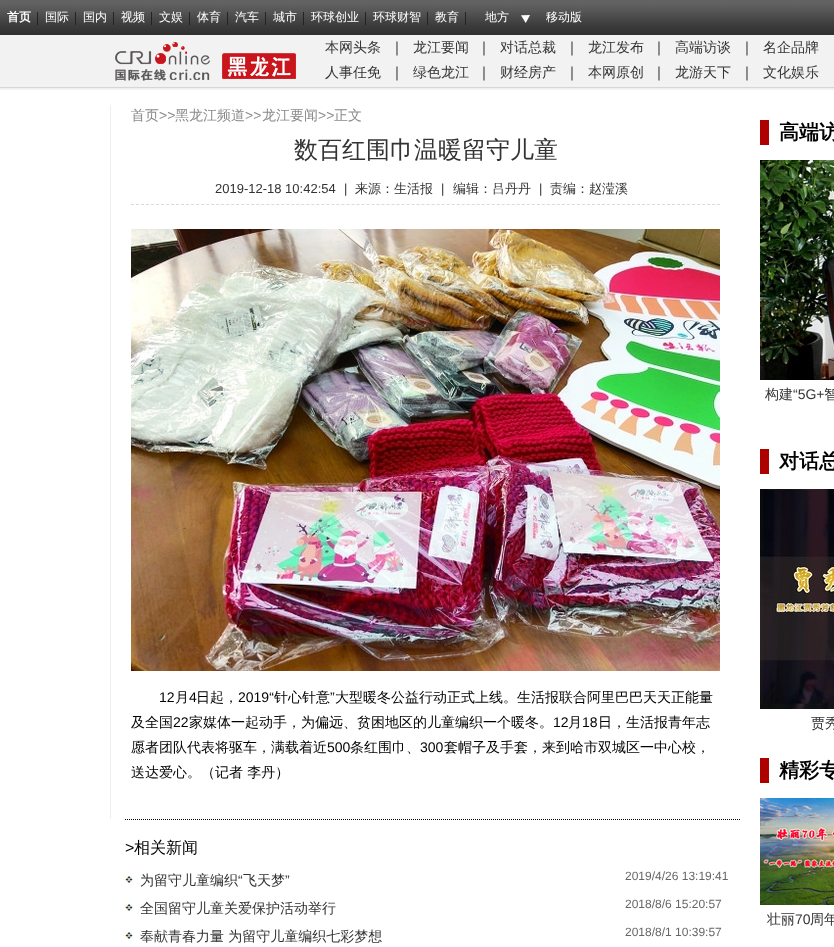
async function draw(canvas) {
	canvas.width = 834;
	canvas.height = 947;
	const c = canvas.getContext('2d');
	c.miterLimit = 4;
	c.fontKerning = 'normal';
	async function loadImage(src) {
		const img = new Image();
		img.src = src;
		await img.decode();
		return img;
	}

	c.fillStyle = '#fff';
	c.fillRect(0, 0, 834, 947);
	c.drawImage(await loadImage('img1.png'), 0, 0, 834, 35);
	c.fillStyle = '#252222';
	c.fillRect(37, 12, 1, 13);
	c.font = 'bold 12px WenQuanYi Zen Hei';
	c.fillStyle = '#fff';
	c.fillText('首页', 7, 21);
	c.fillStyle = '#252222';
	c.fillRect(75, 12, 1, 13);
	c.font = '500 12px WenQuanYi Zen Hei';
	c.fillStyle = '#fff';
	c.fillText('国际', 45, 21);
	c.fillStyle = '#252222';
	c.fillRect(113, 12, 1, 13);
	c.fillStyle = '#fff';
	c.fillText('国内', 83, 21);
	c.fillStyle = '#252222';
	c.fillRect(151, 12, 1, 13);
	c.fillStyle = '#fff';
	c.fillText('视频', 121, 21);
	c.fillStyle = '#252222';
	c.fillRect(189, 12, 1, 13);
	c.fillStyle = '#fff';
	c.fillText('文娱', 159, 21);
	c.fillStyle = '#252222';
	c.fillRect(227, 12, 1, 13);
	c.fillStyle = '#fff';
	c.fillText('体育', 197, 21);
	c.fillStyle = '#252222';
	c.fillRect(265, 12, 1, 13);
	c.fillStyle = '#fff';
	c.fillText('汽车', 235, 21);
	c.fillStyle = '#252222';
	c.fillRect(303, 12, 1, 13);
	c.fillStyle = '#fff';
	c.fillText('城市', 273, 21);
	c.fillStyle = '#252222';
	c.fillRect(365, 12, 1, 13);
	c.fillStyle = '#fff';
	c.fillText('环球创业', 311, 21);
	c.fillStyle = '#252222';
	c.fillRect(427, 12, 1, 13);
	c.fillStyle = '#fff';
	c.fillText('环球财智', 373, 21);
	c.fillStyle = '#252222';
	c.fillRect(465, 12, 1, 13);
	c.fillStyle = '#fff';
	c.fillText('教育', 435, 21);
	c.drawImage(await loadImage('img2.png'), 521, 15, 9, 8);
	c.fillText('地方', 485, 21);
	c.fillText('移动版', 546, 21);
	c.drawImage(await loadImage('img3.png'), 0, 35, 834, 55);
	c.drawImage(await loadImage('img4.png'), 115, 42, 181, 39);
	c.font = '500 14px WenQuanYi Zen Hei';
	c.fillStyle = '#333';
	c.fillText('本网头条', 325, 52);
	c.fillStyle = '#000';
	c.fillText('｜', 390, 52);
	c.fillStyle = '#333';
	c.fillText('龙江要闻', 413, 52);
	c.fillStyle = '#000';
	c.fillText('｜', 477, 52);
	c.fillStyle = '#333';
	c.fillText('对话总裁', 500, 52);
	c.fillStyle = '#000';
	c.fillText('｜', 565, 52);
	c.fillStyle = '#333';
	c.fillText('龙江发布', 588, 52);
	c.fillStyle = '#000';
	c.fillText('｜', 652, 52);
	c.fillStyle = '#333';
	c.fillText('高端访谈', 675, 52);
	c.fillStyle = '#000';
	c.fillText('｜', 740, 52);
	c.fillStyle = '#333';
	c.fillText('名企品牌', 763, 52);
	c.fillText('人事任免', 325, 77);
	c.fillStyle = '#000';
	c.fillText('｜', 390, 77);
	c.fillStyle = '#333';
	c.fillText('绿色龙江', 413, 77);
	c.fillStyle = '#000';
	c.fillText('｜', 477, 77);
	c.fillStyle = '#333';
	c.fillText('财经房产', 500, 77);
	c.fillStyle = '#000';
	c.fillText('｜', 565, 77);
	c.fillStyle = '#333';
	c.fillText('本网原创', 588, 77);
	c.fillStyle = '#000';
	c.fillText('｜', 652, 77);
	c.fillStyle = '#333';
	c.fillText('龙游天下', 675, 77);
	c.fillStyle = '#000';
	c.fillText('｜', 740, 77);
	c.fillStyle = '#333';
	c.fillText('文化娱乐', 763, 77);
	c.fillStyle = '#eeeff1';
	c.fillRect(110, 105, 1, 714);
	c.fillStyle = '#8a8a8a';
	c.fillText('首页', 131, 120);
	c.font = '14px Liberation Sans';
	c.fillText('>>', 159, 120);
	c.font = '500 14px WenQuanYi Zen Hei';
	c.fillText('黑龙江频道', 175, 120);
	c.font = '14px Liberation Sans';
	c.fillText('>>', 245, 120);
	c.font = '500 14px WenQuanYi Zen Hei';
	c.fillText('龙江要闻', 262, 120);
	c.font = '14px Liberation Sans';
	c.fillText('>>', 318, 120);
	c.font = '500 14px WenQuanYi Zen Hei';
	c.fillText('正文', 334, 120);
	c.font = '500 24px WenQuanYi Zen Hei';
	c.fillStyle = '#333';
	c.fillText('数百红围巾温暖留守儿童', 294, 158);
	c.beginPath();
	c.moveTo(131, 204.5);
	c.lineTo(720, 204.5);
	c.strokeStyle = '#dadada';
	c.setLineDash([3, 2.01]);
	c.stroke();
	c.font = '13px Liberation Sans';
	c.fillText('2019-12-18 10:42:54', 215, 193);
	c.fillText('|', 344, 193);
	c.font = '500 13px WenQuanYi Zen Hei';
	c.fillText('来源：', 355, 193);
	c.fillText('生活报', 394, 193);
	c.font = '13px Liberation Sans';
	c.fillText('|', 441, 193);
	c.font = '500 13px WenQuanYi Zen Hei';
	c.fillText('编辑：吕丹丹', 453, 193);
	c.font = '13px Liberation Sans';
	c.fillText('|', 539, 193);
	c.font = '500 13px WenQuanYi Zen Hei';
	c.fillText('责编：赵滢溪', 550, 193);
	c.drawImage(await loadImage('img5.png'), 131, 229, 589, 442);
	c.font = '14px Liberation Sans';
	c.fillStyle = '#000';
	c.fillText('12', 159, 702);
	c.font = '500 14px WenQuanYi Zen Hei';
	c.fillText('月', 175, 702);
	c.font = '14px Liberation Sans';
	c.fillText('4', 189, 702);
	c.font = '500 14px WenQuanYi Zen Hei';
	c.fillText('日起，', 196, 702);
	c.font = '14px Liberation Sans';
	c.fillText('2019“', 238, 702);
	c.font = '500 14px WenQuanYi Zen Hei';
	c.fillText('针心针意', 274, 702);
	c.font = '14px Liberation Sans';
	c.fillText('”', 330, 702);
	c.font = '500 14px WenQuanYi Zen Hei';
	c.fillText('大型暖冬公益行动正式上线。生活报联合阿里巴巴天天正能量', 335, 702);
	c.fillText('及全国', 131, 727);
	c.font = '14px Liberation Sans';
	c.fillText('22', 173, 727);
	c.font = '500 14px WenQuanYi Zen Hei';
	c.fillText('家媒体一起动手，为偏远、贫困地区的儿童编织一个暖冬。', 189, 727);
	c.font = '14px Liberation Sans';
	c.fillText('12', 553, 727);
	c.font = '500 14px WenQuanYi Zen Hei';
	c.fillText('月', 568, 727);
	c.font = '14px Liberation Sans';
	c.fillText('18', 582, 727);
	c.font = '500 14px WenQuanYi Zen Hei';
	c.fillText('日，生活报青年志', 598, 727);
	c.fillText('愿者团队代表将驱车，满载着近', 131, 752);
	c.font = '14px Liberation Sans';
	c.fillText('500', 327, 752);
	c.font = '500 14px WenQuanYi Zen Hei';
	c.fillText('条红围巾、', 350, 752);
	c.font = '14px Liberation Sans';
	c.fillText('300', 420, 752);
	c.font = '500 14px WenQuanYi Zen Hei';
	c.fillText('套帽子及手套，来到哈市双城区一中心校，', 444, 752);
	c.fillText('送达爱心。（记者 李丹）', 131, 777);
	c.beginPath();
	c.moveTo(125, 819.5);
	c.lineTo(740, 819.5);
	c.strokeStyle = '#000';
	c.setLineDash([1, 1]);
	c.stroke();
	c.font = '16px Liberation Sans';
	c.fillText('>', 125, 853);
	c.font = '500 16px WenQuanYi Zen Hei';
	c.fillText('相关新闻', 134, 853);
	c.drawImage(await loadImage('img6.png'), 125, 876, 8, 7);
	c.font = '500 14px WenQuanYi Zen Hei';
	c.fillStyle = '#333';
	c.fillText('为留守儿童编织', 140, 885);
	c.font = '14px Liberation Sans';
	c.fillText('“', 238, 885);
	c.font = '500 14px WenQuanYi Zen Hei';
	c.fillText('飞天梦', 243, 885);
	c.font = '14px Liberation Sans';
	c.fillText('”', 285, 885);
	c.font = '12px Liberation Sans';
	c.fillStyle = '#666';
	c.fillText('2019/4/26 13:19:41', 625, 880);
	c.drawImage(await loadImage('img6.png'), 125, 904, 8, 7);
	c.font = '500 14px WenQuanYi Zen Hei';
	c.fillStyle = '#333';
	c.fillText('全国留守儿童关爱保护活动举行', 140, 913);
	c.font = '12px Liberation Sans';
	c.fillStyle = '#666';
	c.fillText('2018/8/6 15:20:57', 625, 908);
	c.drawImage(await loadImage('img6.png'), 125, 932, 8, 7);
	c.font = '500 14px WenQuanYi Zen Hei';
	c.fillStyle = '#333';
	c.fillText('奉献青春力量 为留守儿童编织七彩梦想', 140, 941);
	c.font = '12px Liberation Sans';
	c.fillStyle = '#666';
	c.fillText('2018/8/1 10:39:57', 625, 936);
	c.fillStyle = '#af0000';
	c.fillRect(760, 120, 9, 25);
	c.font = 'bold 20px WenQuanYi Zen Hei';
	c.fillStyle = '#000';
	c.fillText('高端访', 779, 139);
	c.drawImage(await loadImage('img7.png'), 760, 160, 74, 220);
	c.font = '500 14px WenQuanYi Zen Hei';
	c.fillStyle = '#333';
	c.fillText('构建', 765, 399);
	c.font = '14px Liberation Sans';
	c.fillText('“5G+', 793, 399);
	c.font = '500 14px WenQuanYi Zen Hei';
	c.fillText('智', 824, 399);
	c.fillStyle = '#af0000';
	c.fillRect(760, 449, 9, 25);
	c.font = 'bold 20px WenQuanYi Zen Hei';
	c.fillStyle = '#000';
	c.fillText('对话总', 779, 468);
	c.drawImage(await loadImage('img8.png'), 760, 489, 74, 220);
	c.font = '500 14px WenQuanYi Zen Hei';
	c.fillStyle = '#333';
	c.fillText('贾秀', 811, 728);
	c.fillStyle = '#af0000';
	c.fillRect(760, 758, 9, 25);
	c.font = 'bold 20px WenQuanYi Zen Hei';
	c.fillStyle = '#000';
	c.fillText('精彩专', 779, 777);
	c.drawImage(await loadImage('img9.png'), 760, 798, 74, 107);
	c.font = '500 14px WenQuanYi Zen Hei';
	c.fillStyle = '#333';
	c.fillText('壮丽', 767, 924);
	c.font = '14px Liberation Sans';
	c.fillText('70', 795, 924);
	c.font = '500 14px WenQuanYi Zen Hei';
	c.fillText('周年', 810, 924);
}

draw(document.querySelector('canvas'));
